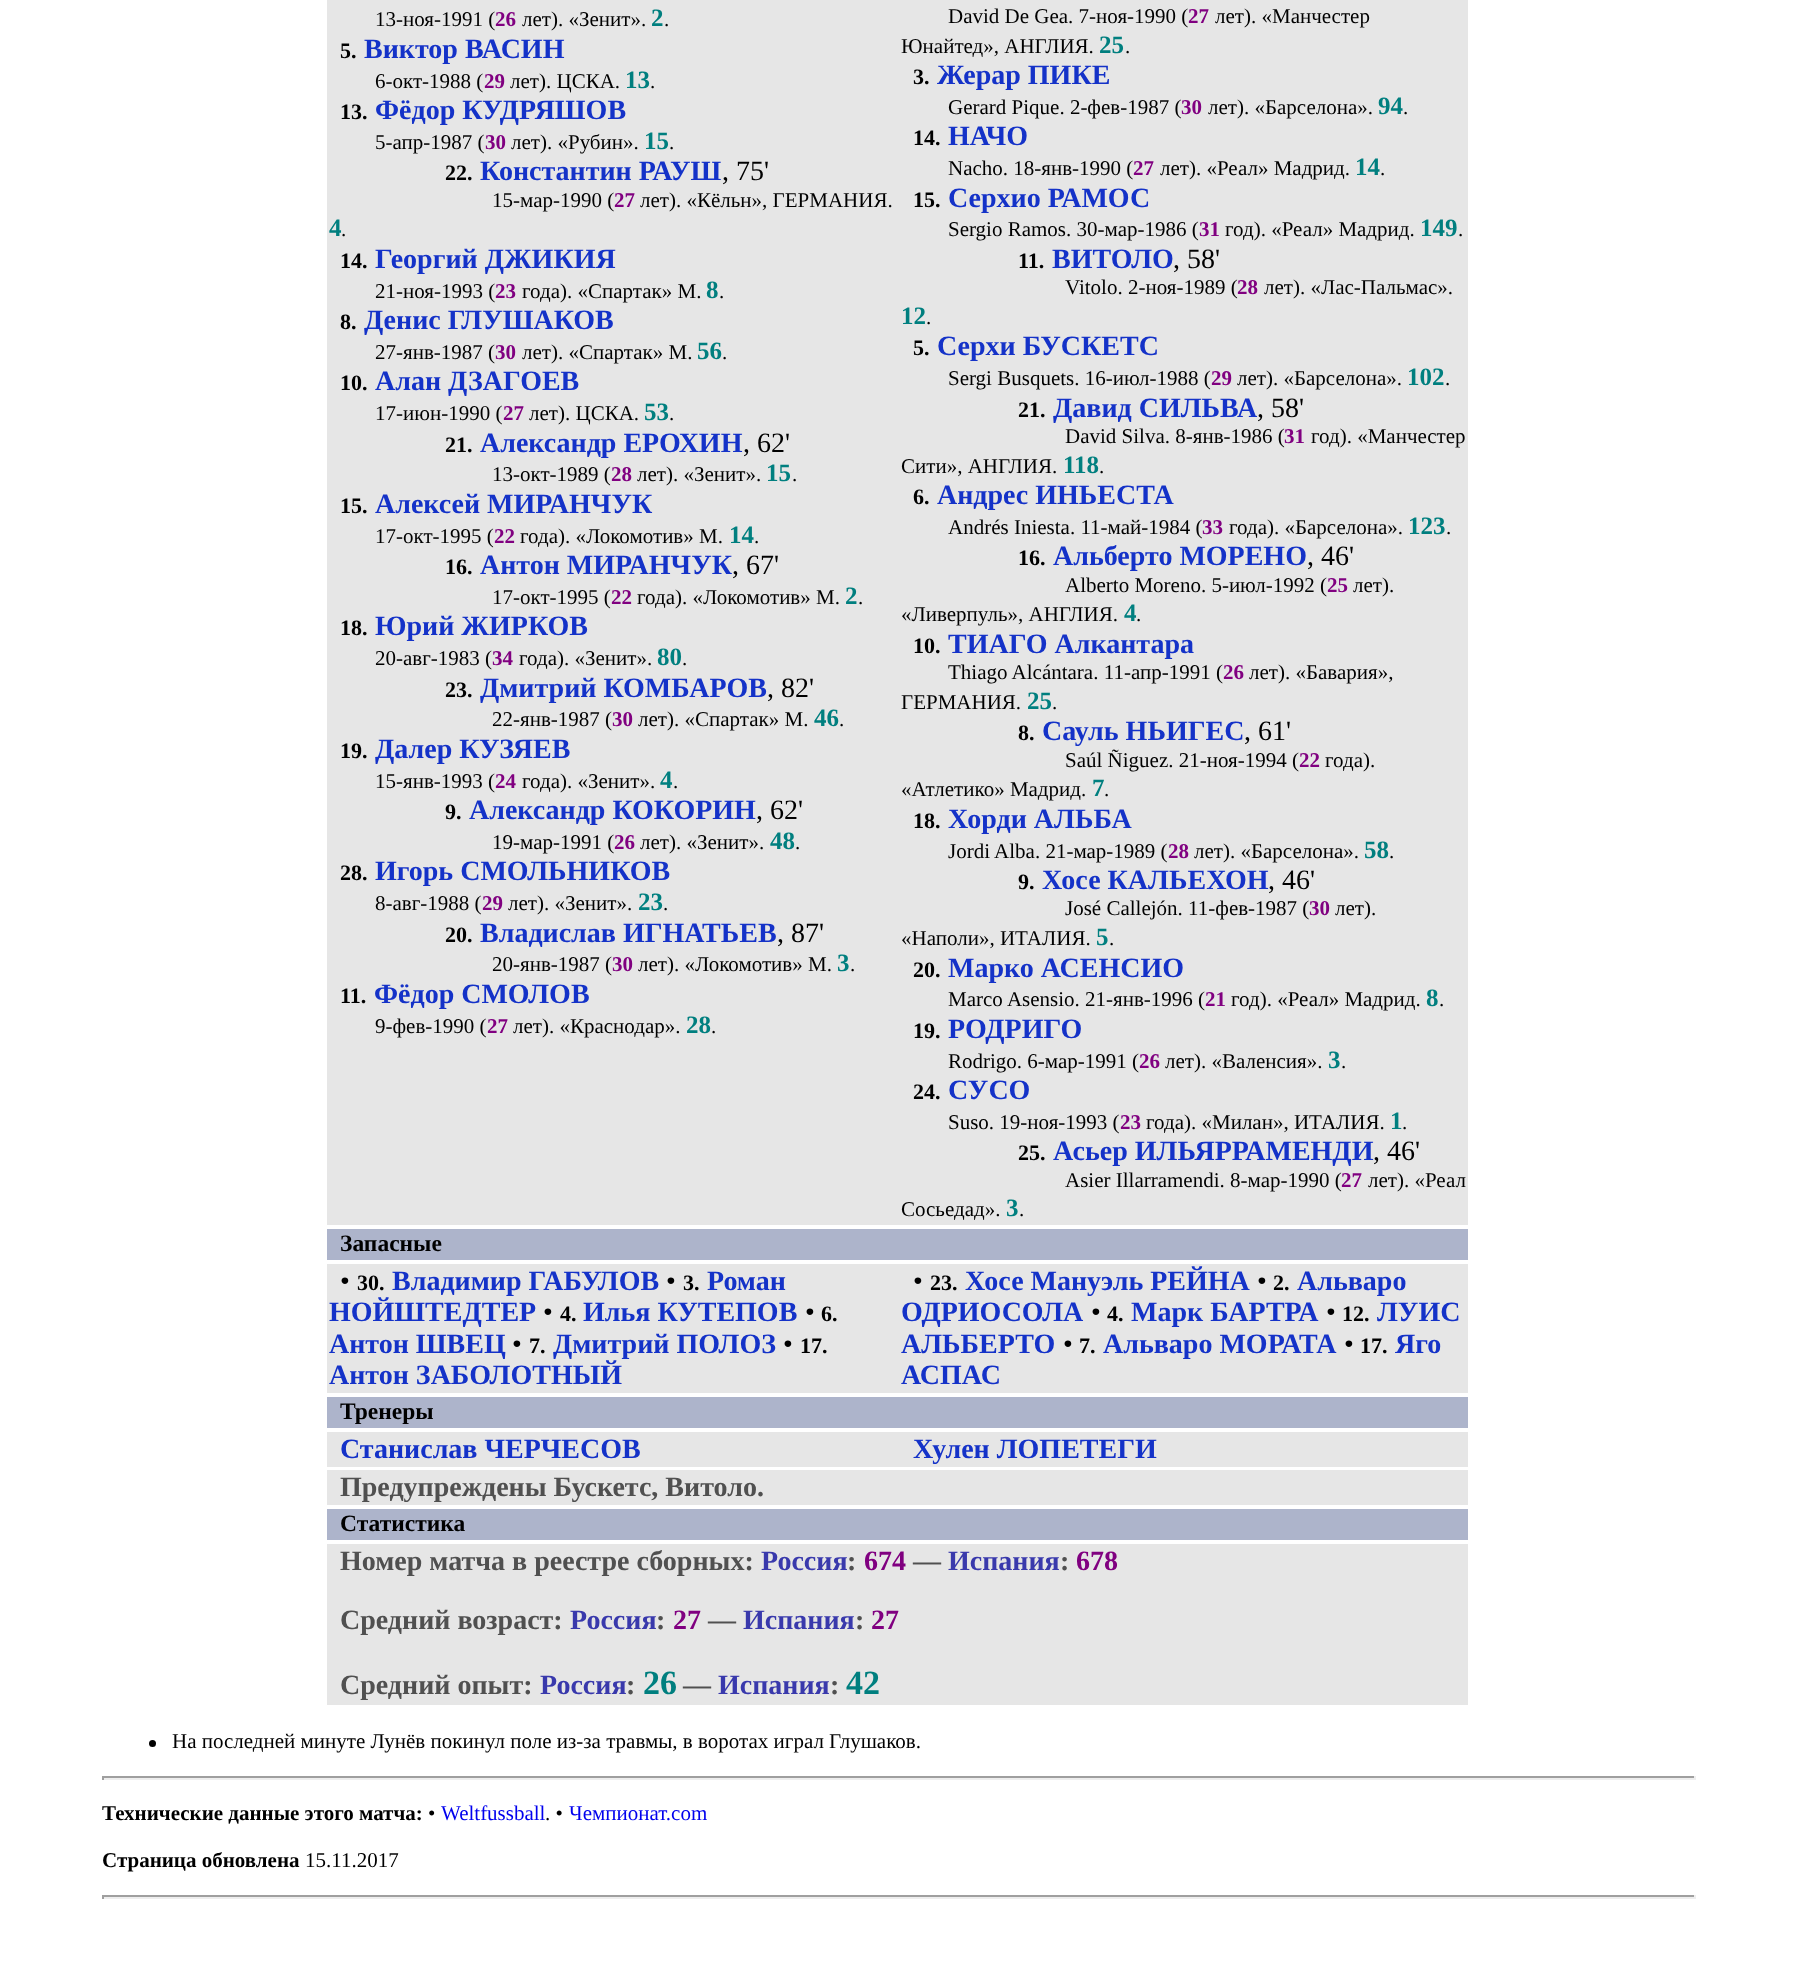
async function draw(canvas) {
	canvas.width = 1794;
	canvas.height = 1987;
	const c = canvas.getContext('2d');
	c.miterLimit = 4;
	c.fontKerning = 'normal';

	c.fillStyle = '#fff';
	c.fillRect(0, 0, 1794, 1987);
	c.fillStyle = '#e6e6e6';
	c.fillRect(327, 0, 1141, 1225);
	c.font = '21px Liberation Serif';
	c.fillStyle = '#000';
	c.fillText('13-ноя-1991 (', 375, 26);
	c.font = 'bold 21px Liberation Serif';
	c.fillStyle = '#800080';
	c.fillText('26', 495, 26);
	c.font = '21px Liberation Serif';
	c.fillStyle = '#000';
	c.fillText('лет). «Зенит».', 522, 26);
	c.font = 'bold 25px Liberation Serif';
	c.fillStyle = '#007f7f';
	c.fillText('2', 651, 26);
	c.font = '21px Liberation Serif';
	c.fillStyle = '#000';
	c.fillText('.', 664, 26);
	c.font = 'bold 22px Liberation Serif';
	c.fillText('5.', 340, 58);
	c.font = 'bold 28px Liberation Serif';
	c.fillStyle = '#1432c8';
	c.fillText('Виктор ВАСИН', 364, 58);
	c.font = '21px Liberation Serif';
	c.fillStyle = '#000';
	c.fillText('6-окт-1988 (', 375, 88);
	c.font = 'bold 21px Liberation Serif';
	c.fillStyle = '#800080';
	c.fillText('29', 484, 88);
	c.font = '21px Liberation Serif';
	c.fillStyle = '#000';
	c.fillText('лет). ЦСКА.', 510, 88);
	c.font = 'bold 25px Liberation Serif';
	c.fillStyle = '#007f7f';
	c.fillText('13', 625, 88);
	c.font = '21px Liberation Serif';
	c.fillStyle = '#000';
	c.fillText('.', 650, 88);
	c.font = 'bold 22px Liberation Serif';
	c.fillText('13.', 340, 119);
	c.font = 'bold 28px Liberation Serif';
	c.fillStyle = '#1432c8';
	c.fillText('Фёдор КУДРЯШОВ', 375, 119);
	c.font = '21px Liberation Serif';
	c.fillStyle = '#000';
	c.fillText('5-апр-1987 (', 375, 149);
	c.font = 'bold 21px Liberation Serif';
	c.fillStyle = '#800080';
	c.fillText('30', 485, 149);
	c.font = '21px Liberation Serif';
	c.fillStyle = '#000';
	c.fillText('лет). «Рубин».', 511, 149);
	c.font = 'bold 25px Liberation Serif';
	c.fillStyle = '#007f7f';
	c.fillText('15', 644, 149);
	c.font = '21px Liberation Serif';
	c.fillStyle = '#000';
	c.fillText('.', 669, 149);
	c.font = 'bold 22px Liberation Serif';
	c.fillText('22.', 445, 180);
	c.font = 'bold 28px Liberation Serif';
	c.fillStyle = '#1432c8';
	c.fillText('Константин РАУШ', 480, 180);
	c.font = '28px Liberation Serif';
	c.fillStyle = '#000';
	c.fillText(', 75\'', 722, 180);
	c.font = '21px Liberation Serif';
	c.fillText('15-мар-1990 (', 492, 207);
	c.font = 'bold 21px Liberation Serif';
	c.fillStyle = '#800080';
	c.fillText('27', 614, 207);
	c.font = '21px Liberation Serif';
	c.fillStyle = '#000';
	c.fillText('лет). «Кёльн», ГЕРМАНИЯ.', 640, 207);
	c.font = 'bold 25px Liberation Serif';
	c.fillStyle = '#007f7f';
	c.fillText('4', 329, 236);
	c.font = '21px Liberation Serif';
	c.fillStyle = '#000';
	c.fillText('.', 341, 236);
	c.font = 'bold 22px Liberation Serif';
	c.fillText('14.', 340, 268);
	c.font = 'bold 28px Liberation Serif';
	c.fillStyle = '#1432c8';
	c.fillText('Георгий ДЖИКИЯ', 375, 268);
	c.font = '21px Liberation Serif';
	c.fillStyle = '#000';
	c.fillText('21-ноя-1993 (', 375, 298);
	c.font = 'bold 21px Liberation Serif';
	c.fillStyle = '#800080';
	c.fillText('23', 495, 298);
	c.font = '21px Liberation Serif';
	c.fillStyle = '#000';
	c.fillText('года). «Спартак» М.', 522, 298);
	c.font = 'bold 25px Liberation Serif';
	c.fillStyle = '#007f7f';
	c.fillText('8', 706, 298);
	c.font = '21px Liberation Serif';
	c.fillStyle = '#000';
	c.fillText('.', 719, 298);
	c.font = 'bold 22px Liberation Serif';
	c.fillText('8.', 340, 329);
	c.font = 'bold 28px Liberation Serif';
	c.fillStyle = '#1432c8';
	c.fillText('Денис ГЛУШАКОВ', 364, 329);
	c.font = '21px Liberation Serif';
	c.fillStyle = '#000';
	c.fillText('27-янв-1987 (', 375, 359);
	c.font = 'bold 21px Liberation Serif';
	c.fillStyle = '#800080';
	c.fillText('30', 495, 359);
	c.font = '21px Liberation Serif';
	c.fillStyle = '#000';
	c.fillText('лет). «Спартак» М.', 522, 359);
	c.font = 'bold 25px Liberation Serif';
	c.fillStyle = '#007f7f';
	c.fillText('56', 697, 359);
	c.font = '21px Liberation Serif';
	c.fillStyle = '#000';
	c.fillText('.', 722, 359);
	c.font = 'bold 22px Liberation Serif';
	c.fillText('10.', 340, 390);
	c.font = 'bold 28px Liberation Serif';
	c.fillStyle = '#1432c8';
	c.fillText('Алан ДЗАГОЕВ', 375, 390);
	c.font = '21px Liberation Serif';
	c.fillStyle = '#000';
	c.fillText('17-июн-1990 (', 375, 420);
	c.font = 'bold 21px Liberation Serif';
	c.fillStyle = '#800080';
	c.fillText('27', 503, 420);
	c.font = '21px Liberation Serif';
	c.fillStyle = '#000';
	c.fillText('лет). ЦСКА.', 529, 420);
	c.font = 'bold 25px Liberation Serif';
	c.fillStyle = '#007f7f';
	c.fillText('53', 644, 420);
	c.font = '21px Liberation Serif';
	c.fillStyle = '#000';
	c.fillText('.', 669, 420);
	c.font = 'bold 22px Liberation Serif';
	c.fillText('21.', 445, 452);
	c.font = 'bold 28px Liberation Serif';
	c.fillStyle = '#1432c8';
	c.fillText('Александр ЕРОХИН', 480, 452);
	c.font = '28px Liberation Serif';
	c.fillStyle = '#000';
	c.fillText(', 62\'', 743, 452);
	c.font = '21px Liberation Serif';
	c.fillText('13-окт-1989 (', 492, 481);
	c.font = 'bold 21px Liberation Serif';
	c.fillStyle = '#800080';
	c.fillText('28', 611, 481);
	c.font = '21px Liberation Serif';
	c.fillStyle = '#000';
	c.fillText('лет). «Зенит».', 637, 481);
	c.font = 'bold 25px Liberation Serif';
	c.fillStyle = '#007f7f';
	c.fillText('15', 766, 481);
	c.font = '21px Liberation Serif';
	c.fillStyle = '#000';
	c.fillText('.', 792, 481);
	c.font = 'bold 22px Liberation Serif';
	c.fillText('15.', 340, 513);
	c.font = 'bold 28px Liberation Serif';
	c.fillStyle = '#1432c8';
	c.fillText('Алексей МИРАНЧУК', 375, 513);
	c.font = '21px Liberation Serif';
	c.fillStyle = '#000';
	c.fillText('17-окт-1995 (', 375, 543);
	c.font = 'bold 21px Liberation Serif';
	c.fillStyle = '#800080';
	c.fillText('22', 494, 543);
	c.font = '21px Liberation Serif';
	c.fillStyle = '#000';
	c.fillText('года). «Локомотив» М.', 520, 543);
	c.font = 'bold 25px Liberation Serif';
	c.fillStyle = '#007f7f';
	c.fillText('14', 729, 543);
	c.font = '21px Liberation Serif';
	c.fillStyle = '#000';
	c.fillText('.', 754, 543);
	c.font = 'bold 22px Liberation Serif';
	c.fillText('16.', 445, 574);
	c.font = 'bold 28px Liberation Serif';
	c.fillStyle = '#1432c8';
	c.fillText('Антон МИРАНЧУК', 480, 574);
	c.font = '28px Liberation Serif';
	c.fillStyle = '#000';
	c.fillText(', 67\'', 732, 574);
	c.font = '21px Liberation Serif';
	c.fillText('17-окт-1995 (', 492, 604);
	c.font = 'bold 21px Liberation Serif';
	c.fillStyle = '#800080';
	c.fillText('22', 611, 604);
	c.font = '21px Liberation Serif';
	c.fillStyle = '#000';
	c.fillText('года). «Локомотив» М.', 637, 604);
	c.font = 'bold 25px Liberation Serif';
	c.fillStyle = '#007f7f';
	c.fillText('2', 845, 604);
	c.font = '21px Liberation Serif';
	c.fillStyle = '#000';
	c.fillText('.', 858, 604);
	c.font = 'bold 22px Liberation Serif';
	c.fillText('18.', 340, 635);
	c.font = 'bold 28px Liberation Serif';
	c.fillStyle = '#1432c8';
	c.fillText('Юрий ЖИРКОВ', 375, 635);
	c.font = '21px Liberation Serif';
	c.fillStyle = '#000';
	c.fillText('20-авг-1983 (', 375, 665);
	c.font = 'bold 21px Liberation Serif';
	c.fillStyle = '#800080';
	c.fillText('34', 492, 665);
	c.font = '21px Liberation Serif';
	c.fillStyle = '#000';
	c.fillText('года). «Зенит».', 519, 665);
	c.font = 'bold 25px Liberation Serif';
	c.fillStyle = '#007f7f';
	c.fillText('80', 657, 665);
	c.font = '21px Liberation Serif';
	c.fillStyle = '#000';
	c.fillText('.', 682, 665);
	c.font = 'bold 22px Liberation Serif';
	c.fillText('23.', 445, 697);
	c.font = 'bold 28px Liberation Serif';
	c.fillStyle = '#1432c8';
	c.fillText('Дмитрий КОМБАРОВ', 480, 697);
	c.font = '28px Liberation Serif';
	c.fillStyle = '#000';
	c.fillText(', 82\'', 767, 697);
	c.font = '21px Liberation Serif';
	c.fillText('22-янв-1987 (', 492, 726);
	c.font = 'bold 21px Liberation Serif';
	c.fillStyle = '#800080';
	c.fillText('30', 612, 726);
	c.font = '21px Liberation Serif';
	c.fillStyle = '#000';
	c.fillText('лет). «Спартак» М.', 638, 726);
	c.font = 'bold 25px Liberation Serif';
	c.fillStyle = '#007f7f';
	c.fillText('46', 814, 726);
	c.font = '21px Liberation Serif';
	c.fillStyle = '#000';
	c.fillText('.', 839, 726);
	c.font = 'bold 22px Liberation Serif';
	c.fillText('19.', 340, 758);
	c.font = 'bold 28px Liberation Serif';
	c.fillStyle = '#1432c8';
	c.fillText('Далер КУЗЯЕВ', 375, 758);
	c.font = '21px Liberation Serif';
	c.fillStyle = '#000';
	c.fillText('15-янв-1993 (', 375, 788);
	c.font = 'bold 21px Liberation Serif';
	c.fillStyle = '#800080';
	c.fillText('24', 495, 788);
	c.font = '21px Liberation Serif';
	c.fillStyle = '#000';
	c.fillText('года). «Зенит».', 522, 788);
	c.font = 'bold 25px Liberation Serif';
	c.fillStyle = '#007f7f';
	c.fillText('4', 660, 788);
	c.font = '21px Liberation Serif';
	c.fillStyle = '#000';
	c.fillText('.', 673, 788);
	c.font = 'bold 22px Liberation Serif';
	c.fillText('9.', 445, 819);
	c.font = 'bold 28px Liberation Serif';
	c.fillStyle = '#1432c8';
	c.fillText('Александр КОКОРИН', 469, 819);
	c.font = '28px Liberation Serif';
	c.fillStyle = '#000';
	c.fillText(', 62\'', 756, 819);
	c.font = '21px Liberation Serif';
	c.fillText('19-мар-1991 (', 492, 849);
	c.font = 'bold 21px Liberation Serif';
	c.fillStyle = '#800080';
	c.fillText('26', 614, 849);
	c.font = '21px Liberation Serif';
	c.fillStyle = '#000';
	c.fillText('лет). «Зенит».', 640, 849);
	c.font = 'bold 25px Liberation Serif';
	c.fillStyle = '#007f7f';
	c.fillText('48', 770, 849);
	c.font = '21px Liberation Serif';
	c.fillStyle = '#000';
	c.fillText('.', 795, 849);
	c.font = 'bold 22px Liberation Serif';
	c.fillText('28.', 340, 880);
	c.font = 'bold 28px Liberation Serif';
	c.fillStyle = '#1432c8';
	c.fillText('Игорь СМОЛЬНИКОВ', 375, 880);
	c.font = '21px Liberation Serif';
	c.fillStyle = '#000';
	c.fillText('8-авг-1988 (', 375, 910);
	c.font = 'bold 21px Liberation Serif';
	c.fillStyle = '#800080';
	c.fillText('29', 482, 910);
	c.font = '21px Liberation Serif';
	c.fillStyle = '#000';
	c.fillText('лет). «Зенит».', 508, 910);
	c.font = 'bold 25px Liberation Serif';
	c.fillStyle = '#007f7f';
	c.fillText('23', 638, 910);
	c.font = '21px Liberation Serif';
	c.fillStyle = '#000';
	c.fillText('.', 663, 910);
	c.font = 'bold 22px Liberation Serif';
	c.fillText('20.', 445, 942);
	c.font = 'bold 28px Liberation Serif';
	c.fillStyle = '#1432c8';
	c.fillText('Владислав ИГНАТЬЕВ', 480, 942);
	c.font = '28px Liberation Serif';
	c.fillStyle = '#000';
	c.fillText(', 87\'', 777, 942);
	c.font = '21px Liberation Serif';
	c.fillText('20-янв-1987 (', 492, 971);
	c.font = 'bold 21px Liberation Serif';
	c.fillStyle = '#800080';
	c.fillText('30', 612, 971);
	c.font = '21px Liberation Serif';
	c.fillStyle = '#000';
	c.fillText('лет). «Локомотив» М.', 638, 971);
	c.font = 'bold 25px Liberation Serif';
	c.fillStyle = '#007f7f';
	c.fillText('3', 837, 971);
	c.font = '21px Liberation Serif';
	c.fillStyle = '#000';
	c.fillText('.', 850, 971);
	c.font = 'bold 22px Liberation Serif';
	c.fillText('11.', 340, 1003);
	c.font = 'bold 28px Liberation Serif';
	c.fillStyle = '#1432c8';
	c.fillText('Фёдор СМОЛОВ', 374, 1003);
	c.font = '21px Liberation Serif';
	c.fillStyle = '#000';
	c.fillText('9-фев-1990 (', 375, 1033);
	c.font = 'bold 21px Liberation Serif';
	c.fillStyle = '#800080';
	c.fillText('27', 487, 1033);
	c.font = '21px Liberation Serif';
	c.fillStyle = '#000';
	c.fillText('лет). «Краснодар».', 513, 1033);
	c.font = 'bold 25px Liberation Serif';
	c.fillStyle = '#007f7f';
	c.fillText('28', 686, 1033);
	c.font = '21px Liberation Serif';
	c.fillStyle = '#000';
	c.fillText('.', 711, 1033);
	c.fillText('David De Gea. 7-ноя-1990 (', 948, 23);
	c.font = 'bold 21px Liberation Serif';
	c.fillStyle = '#800080';
	c.fillText('27', 1188, 23);
	c.font = '21px Liberation Serif';
	c.fillStyle = '#000';
	c.fillText('лет). «Манчестер', 1215, 23);
	c.fillText('Юнайтед», АНГЛИЯ.', 901, 53);
	c.font = 'bold 25px Liberation Serif';
	c.fillStyle = '#007f7f';
	c.fillText('25', 1099, 53);
	c.font = '21px Liberation Serif';
	c.fillStyle = '#000';
	c.fillText('.', 1125, 53);
	c.font = 'bold 22px Liberation Serif';
	c.fillText('3.', 913, 84);
	c.font = 'bold 28px Liberation Serif';
	c.fillStyle = '#1432c8';
	c.fillText('Жерар ПИКЕ', 937, 84);
	c.font = '21px Liberation Serif';
	c.fillStyle = '#000';
	c.fillText('Gerard Pique. 2-фев-1987 (', 948, 114);
	c.font = 'bold 21px Liberation Serif';
	c.fillStyle = '#800080';
	c.fillText('30', 1181, 114);
	c.font = '21px Liberation Serif';
	c.fillStyle = '#000';
	c.fillText('лет). «Барселона».', 1208, 114);
	c.font = 'bold 25px Liberation Serif';
	c.fillStyle = '#007f7f';
	c.fillText('94', 1378, 114);
	c.font = '21px Liberation Serif';
	c.fillStyle = '#000';
	c.fillText('.', 1403, 114);
	c.font = 'bold 22px Liberation Serif';
	c.fillText('14.', 913, 145);
	c.font = 'bold 28px Liberation Serif';
	c.fillStyle = '#1432c8';
	c.fillText('НАЧО', 948, 145);
	c.font = '21px Liberation Serif';
	c.fillStyle = '#000';
	c.fillText('Nacho. 18-янв-1990 (', 948, 175);
	c.font = 'bold 21px Liberation Serif';
	c.fillStyle = '#800080';
	c.fillText('27', 1133, 175);
	c.font = '21px Liberation Serif';
	c.fillStyle = '#000';
	c.fillText('лет). «Реал» Мадрид.', 1160, 175);
	c.font = 'bold 25px Liberation Serif';
	c.fillStyle = '#007f7f';
	c.fillText('14', 1355, 175);
	c.font = '21px Liberation Serif';
	c.fillStyle = '#000';
	c.fillText('.', 1380, 175);
	c.font = 'bold 22px Liberation Serif';
	c.fillText('15.', 913, 207);
	c.font = 'bold 28px Liberation Serif';
	c.fillStyle = '#1432c8';
	c.fillText('Серхио РАМОС', 948, 207);
	c.font = '21px Liberation Serif';
	c.fillStyle = '#000';
	c.fillText('Sergio Ramos. 30-мар-1986 (', 948, 236);
	c.font = 'bold 21px Liberation Serif';
	c.fillStyle = '#800080';
	c.fillText('31', 1199, 236);
	c.font = '21px Liberation Serif';
	c.fillStyle = '#000';
	c.fillText('год). «Реал» Мадрид.', 1225, 236);
	c.font = 'bold 25px Liberation Serif';
	c.fillStyle = '#007f7f';
	c.fillText('149', 1420, 236);
	c.font = '21px Liberation Serif';
	c.fillStyle = '#000';
	c.fillText('.', 1458, 236);
	c.font = 'bold 22px Liberation Serif';
	c.fillText('11.', 1018, 268);
	c.font = 'bold 28px Liberation Serif';
	c.fillStyle = '#1432c8';
	c.fillText('ВИТОЛО', 1052, 268);
	c.font = '28px Liberation Serif';
	c.fillStyle = '#000';
	c.fillText(', 58\'', 1173, 268);
	c.font = '21px Liberation Serif';
	c.fillText('Vitolo. 2-ноя-1989 (', 1065, 294);
	c.font = 'bold 21px Liberation Serif';
	c.fillStyle = '#800080';
	c.fillText('28', 1237, 294);
	c.font = '21px Liberation Serif';
	c.fillStyle = '#000';
	c.fillText('лет). «Лас-Пальмас».', 1264, 294);
	c.font = 'bold 25px Liberation Serif';
	c.fillStyle = '#007f7f';
	c.fillText('12', 901, 324);
	c.font = '21px Liberation Serif';
	c.fillStyle = '#000';
	c.fillText('.', 926, 324);
	c.font = 'bold 22px Liberation Serif';
	c.fillText('5.', 913, 355);
	c.font = 'bold 28px Liberation Serif';
	c.fillStyle = '#1432c8';
	c.fillText('Серхи БУСКЕТС', 937, 355);
	c.font = '21px Liberation Serif';
	c.fillStyle = '#000';
	c.fillText('Sergi Busquets. 16-июл-1988 (', 948, 385);
	c.font = 'bold 21px Liberation Serif';
	c.fillStyle = '#800080';
	c.fillText('29', 1211, 385);
	c.font = '21px Liberation Serif';
	c.fillStyle = '#000';
	c.fillText('лет). «Барселона».', 1237, 385);
	c.font = 'bold 25px Liberation Serif';
	c.fillStyle = '#007f7f';
	c.fillText('102', 1407, 385);
	c.font = '21px Liberation Serif';
	c.fillStyle = '#000';
	c.fillText('.', 1445, 385);
	c.font = 'bold 22px Liberation Serif';
	c.fillText('21.', 1018, 417);
	c.font = 'bold 28px Liberation Serif';
	c.fillStyle = '#1432c8';
	c.fillText('Давид СИЛЬВА', 1053, 417);
	c.font = '28px Liberation Serif';
	c.fillStyle = '#000';
	c.fillText(', 58\'', 1257, 417);
	c.font = '21px Liberation Serif';
	c.fillText('David Silva. 8-янв-1986 (', 1065, 443);
	c.font = 'bold 21px Liberation Serif';
	c.fillStyle = '#800080';
	c.fillText('31', 1284, 443);
	c.font = '21px Liberation Serif';
	c.fillStyle = '#000';
	c.fillText('год). «Манчестер', 1311, 443);
	c.fillText('Сити», АНГЛИЯ.', 901, 473);
	c.font = 'bold 25px Liberation Serif';
	c.fillStyle = '#007f7f';
	c.fillText('118', 1063, 473);
	c.font = '21px Liberation Serif';
	c.fillStyle = '#000';
	c.fillText('.', 1099, 473);
	c.font = 'bold 22px Liberation Serif';
	c.fillText('6.', 913, 504);
	c.font = 'bold 28px Liberation Serif';
	c.fillStyle = '#1432c8';
	c.fillText('Андрес ИНЬЕСТА', 937, 504);
	c.font = '21px Liberation Serif';
	c.fillStyle = '#000';
	c.fillText('Andrés Iniesta. 11-май-1984 (', 948, 534);
	c.font = 'bold 21px Liberation Serif';
	c.fillStyle = '#800080';
	c.fillText('33', 1202, 534);
	c.font = '21px Liberation Serif';
	c.fillStyle = '#000';
	c.fillText('года). «Барселона».', 1229, 534);
	c.font = 'bold 25px Liberation Serif';
	c.fillStyle = '#007f7f';
	c.fillText('123', 1408, 534);
	c.font = '21px Liberation Serif';
	c.fillStyle = '#000';
	c.fillText('.', 1446, 534);
	c.font = 'bold 22px Liberation Serif';
	c.fillText('16.', 1018, 565);
	c.font = 'bold 28px Liberation Serif';
	c.fillStyle = '#1432c8';
	c.fillText('Альберто МОРЕНО', 1053, 565);
	c.font = '28px Liberation Serif';
	c.fillStyle = '#000';
	c.fillText(', 46\'', 1307, 565);
	c.font = '21px Liberation Serif';
	c.fillText('Alberto Moreno. 5-июл-1992 (', 1065, 592);
	c.font = 'bold 21px Liberation Serif';
	c.fillStyle = '#800080';
	c.fillText('25', 1327, 592);
	c.font = '21px Liberation Serif';
	c.fillStyle = '#000';
	c.fillText('лет).', 1353, 592);
	c.fillText('«Ливерпуль», АНГЛИЯ.', 901, 621);
	c.font = 'bold 25px Liberation Serif';
	c.fillStyle = '#007f7f';
	c.fillText('4', 1124, 621);
	c.font = '21px Liberation Serif';
	c.fillStyle = '#000';
	c.fillText('.', 1136, 621);
	c.font = 'bold 22px Liberation Serif';
	c.fillText('10.', 913, 653);
	c.font = 'bold 28px Liberation Serif';
	c.fillStyle = '#1432c8';
	c.fillText('ТИАГО Алкантара', 948, 653);
	c.font = '21px Liberation Serif';
	c.fillStyle = '#000';
	c.fillText('Thiago Alcántara. 11-апр-1991 (', 948, 679);
	c.font = 'bold 21px Liberation Serif';
	c.fillStyle = '#800080';
	c.fillText('26', 1223, 679);
	c.font = '21px Liberation Serif';
	c.fillStyle = '#000';
	c.fillText('лет). «Бавария»,', 1249, 679);
	c.fillText('ГЕРМАНИЯ.', 901, 709);
	c.font = 'bold 25px Liberation Serif';
	c.fillStyle = '#007f7f';
	c.fillText('25', 1027, 709);
	c.font = '21px Liberation Serif';
	c.fillStyle = '#000';
	c.fillText('.', 1052, 709);
	c.font = 'bold 22px Liberation Serif';
	c.fillText('8.', 1018, 740);
	c.font = 'bold 28px Liberation Serif';
	c.fillStyle = '#1432c8';
	c.fillText('Сауль НЬИГЕС', 1042, 740);
	c.font = '28px Liberation Serif';
	c.fillStyle = '#000';
	c.fillText(', 61\'', 1244, 740);
	c.font = '21px Liberation Serif';
	c.fillText('Saúl Ñiguez. 21-ноя-1994 (', 1065, 767);
	c.font = 'bold 21px Liberation Serif';
	c.fillStyle = '#800080';
	c.fillText('22', 1299, 767);
	c.font = '21px Liberation Serif';
	c.fillStyle = '#000';
	c.fillText('года).', 1325, 767);
	c.fillText('«Атлетико» Мадрид.', 901, 796);
	c.font = 'bold 25px Liberation Serif';
	c.fillStyle = '#007f7f';
	c.fillText('7', 1092, 796);
	c.font = '21px Liberation Serif';
	c.fillStyle = '#000';
	c.fillText('.', 1104, 796);
	c.font = 'bold 22px Liberation Serif';
	c.fillText('18.', 913, 828);
	c.font = 'bold 28px Liberation Serif';
	c.fillStyle = '#1432c8';
	c.fillText('Хорди АЛЬБА', 948, 828);
	c.font = '21px Liberation Serif';
	c.fillStyle = '#000';
	c.fillText('Jordi Alba. 21-мар-1989 (', 948, 858);
	c.font = 'bold 21px Liberation Serif';
	c.fillStyle = '#800080';
	c.fillText('28', 1168, 858);
	c.font = '21px Liberation Serif';
	c.fillStyle = '#000';
	c.fillText('лет). «Барселона».', 1194, 858);
	c.font = 'bold 25px Liberation Serif';
	c.fillStyle = '#007f7f';
	c.fillText('58', 1364, 858);
	c.font = '21px Liberation Serif';
	c.fillStyle = '#000';
	c.fillText('.', 1389, 858);
	c.font = 'bold 22px Liberation Serif';
	c.fillText('9.', 1018, 889);
	c.font = 'bold 28px Liberation Serif';
	c.fillStyle = '#1432c8';
	c.fillText('Хосе КАЛЬЕХОН', 1042, 889);
	c.font = '28px Liberation Serif';
	c.fillStyle = '#000';
	c.fillText(', 46\'', 1268, 889);
	c.font = '21px Liberation Serif';
	c.fillText('José Callejón. 11-фев-1987 (', 1065, 915);
	c.font = 'bold 21px Liberation Serif';
	c.fillStyle = '#800080';
	c.fillText('30', 1309, 915);
	c.font = '21px Liberation Serif';
	c.fillStyle = '#000';
	c.fillText('лет).', 1335, 915);
	c.fillText('«Наполи», ИТАЛИЯ.', 901, 945);
	c.font = 'bold 25px Liberation Serif';
	c.fillStyle = '#007f7f';
	c.fillText('5', 1096, 945);
	c.font = '21px Liberation Serif';
	c.fillStyle = '#000';
	c.fillText('.', 1109, 945);
	c.font = 'bold 22px Liberation Serif';
	c.fillText('20.', 913, 977);
	c.font = 'bold 28px Liberation Serif';
	c.fillStyle = '#1432c8';
	c.fillText('Марко АСЕНСИО', 948, 977);
	c.font = '21px Liberation Serif';
	c.fillStyle = '#000';
	c.fillText('Marco Asensio. 21-янв-1996 (', 948, 1006);
	c.font = 'bold 21px Liberation Serif';
	c.fillStyle = '#800080';
	c.fillText('21', 1205, 1006);
	c.font = '21px Liberation Serif';
	c.fillStyle = '#000';
	c.fillText('год). «Реал» Мадрид.', 1231, 1006);
	c.font = 'bold 25px Liberation Serif';
	c.fillStyle = '#007f7f';
	c.fillText('8', 1426, 1006);
	c.font = '21px Liberation Serif';
	c.fillStyle = '#000';
	c.fillText('.', 1439, 1006);
	c.font = 'bold 22px Liberation Serif';
	c.fillText('19.', 913, 1038);
	c.font = 'bold 28px Liberation Serif';
	c.fillStyle = '#1432c8';
	c.fillText('РОДРИГО', 948, 1038);
	c.font = '21px Liberation Serif';
	c.fillStyle = '#000';
	c.fillText('Rodrigo. 6-мар-1991 (', 948, 1068);
	c.font = 'bold 21px Liberation Serif';
	c.fillStyle = '#800080';
	c.fillText('26', 1139, 1068);
	c.font = '21px Liberation Serif';
	c.fillStyle = '#000';
	c.fillText('лет). «Валенсия».', 1165, 1068);
	c.font = 'bold 25px Liberation Serif';
	c.fillStyle = '#007f7f';
	c.fillText('3', 1328, 1068);
	c.font = '21px Liberation Serif';
	c.fillStyle = '#000';
	c.fillText('.', 1341, 1068);
	c.font = 'bold 22px Liberation Serif';
	c.fillText('24.', 913, 1099);
	c.font = 'bold 28px Liberation Serif';
	c.fillStyle = '#1432c8';
	c.fillText('СУСО', 948, 1099);
	c.font = '21px Liberation Serif';
	c.fillStyle = '#000';
	c.fillText('Suso. 19-ноя-1993 (', 948, 1129);
	c.font = 'bold 21px Liberation Serif';
	c.fillStyle = '#800080';
	c.fillText('23', 1120, 1129);
	c.font = '21px Liberation Serif';
	c.fillStyle = '#000';
	c.fillText('года). «Милан», ИТАЛИЯ.', 1146, 1129);
	c.font = 'bold 25px Liberation Serif';
	c.fillStyle = '#007f7f';
	c.fillText('1', 1390, 1129);
	c.font = '21px Liberation Serif';
	c.fillStyle = '#000';
	c.fillText('.', 1402, 1129);
	c.font = 'bold 22px Liberation Serif';
	c.fillText('25.', 1018, 1160);
	c.font = 'bold 28px Liberation Serif';
	c.fillStyle = '#1432c8';
	c.fillText('Асьер ИЛЬЯРРАМЕНДИ', 1053, 1160);
	c.font = '28px Liberation Serif';
	c.fillStyle = '#000';
	c.fillText(', 46\'', 1373, 1160);
	c.font = '21px Liberation Serif';
	c.fillText('Asier Illarramendi. 8-мар-1990 (', 1065, 1187);
	c.font = 'bold 21px Liberation Serif';
	c.fillStyle = '#800080';
	c.fillText('27', 1341, 1187);
	c.font = '21px Liberation Serif';
	c.fillStyle = '#000';
	c.fillText('лет). «Реал', 1368, 1187);
	c.fillText('Сосьедад».', 901, 1216);
	c.font = 'bold 25px Liberation Serif';
	c.fillStyle = '#007f7f';
	c.fillText('3', 1006, 1216);
	c.font = '21px Liberation Serif';
	c.fillStyle = '#000';
	c.fillText('.', 1019, 1216);
	c.fillStyle = '#adb4cb';
	c.fillRect(327, 1229, 1141, 31);
	c.font = 'bold 23.5px Liberation Serif';
	c.fillStyle = '#000';
	c.fillText('Запасные', 340, 1251);
	c.fillStyle = '#e6e6e6';
	c.fillRect(327, 1264, 1141, 129);
	c.font = '28px Liberation Serif';
	c.fillStyle = '#000';
	c.fillText('•', 340, 1290);
	c.font = 'bold 22px Liberation Serif';
	c.fillText('30.', 357, 1290);
	c.font = 'bold 28px Liberation Serif';
	c.fillStyle = '#1432c8';
	c.fillText('Владимир ГАБУЛОВ', 392, 1290);
	c.font = '28px Liberation Serif';
	c.fillStyle = '#000';
	c.fillText('•', 666, 1290);
	c.font = 'bold 22px Liberation Serif';
	c.fillText('3.', 683, 1290);
	c.font = 'bold 28px Liberation Serif';
	c.fillStyle = '#1432c8';
	c.fillText('Роман', 707, 1290);
	c.fillText('НОЙШТЕДТЕР', 329, 1321);
	c.font = '28px Liberation Serif';
	c.fillStyle = '#000';
	c.fillText('•', 543, 1321);
	c.font = 'bold 22px Liberation Serif';
	c.fillText('4.', 560, 1321);
	c.font = 'bold 28px Liberation Serif';
	c.fillStyle = '#1432c8';
	c.fillText('Илья КУТЕПОВ', 583, 1321);
	c.font = '28px Liberation Serif';
	c.fillStyle = '#000';
	c.fillText('•', 805, 1321);
	c.font = 'bold 22px Liberation Serif';
	c.fillText('6.', 821, 1321);
	c.font = 'bold 28px Liberation Serif';
	c.fillStyle = '#1432c8';
	c.fillText('Антон ШВЕЦ', 329, 1353);
	c.font = '28px Liberation Serif';
	c.fillStyle = '#000';
	c.fillText('•', 512, 1353);
	c.font = 'bold 22px Liberation Serif';
	c.fillText('7.', 529, 1353);
	c.font = 'bold 28px Liberation Serif';
	c.fillStyle = '#1432c8';
	c.fillText('Дмитрий ПОЛОЗ', 553, 1353);
	c.font = '28px Liberation Serif';
	c.fillStyle = '#000';
	c.fillText('•', 783, 1353);
	c.font = 'bold 22px Liberation Serif';
	c.fillText('17.', 800, 1353);
	c.font = 'bold 28px Liberation Serif';
	c.fillStyle = '#1432c8';
	c.fillText('Антон ЗАБОЛОТНЫЙ', 329, 1384);
	c.font = '28px Liberation Serif';
	c.fillStyle = '#000';
	c.fillText('•', 913, 1290);
	c.font = 'bold 22px Liberation Serif';
	c.fillText('23.', 930, 1290);
	c.font = 'bold 28px Liberation Serif';
	c.fillStyle = '#1432c8';
	c.fillText('Хосе Мануэль РЕЙНА', 965, 1290);
	c.font = '28px Liberation Serif';
	c.fillStyle = '#000';
	c.fillText('•', 1257, 1290);
	c.font = 'bold 22px Liberation Serif';
	c.fillText('2.', 1273, 1290);
	c.font = 'bold 28px Liberation Serif';
	c.fillStyle = '#1432c8';
	c.fillText('Альваро', 1297, 1290);
	c.fillText('ОДРИОСОЛА', 901, 1321);
	c.font = '28px Liberation Serif';
	c.fillStyle = '#000';
	c.fillText('•', 1091, 1321);
	c.font = 'bold 22px Liberation Serif';
	c.fillText('4.', 1107, 1321);
	c.font = 'bold 28px Liberation Serif';
	c.fillStyle = '#1432c8';
	c.fillText('Марк БАРТРА', 1131, 1321);
	c.font = '28px Liberation Serif';
	c.fillStyle = '#000';
	c.fillText('•', 1326, 1321);
	c.font = 'bold 22px Liberation Serif';
	c.fillText('12.', 1342, 1321);
	c.font = 'bold 28px Liberation Serif';
	c.fillStyle = '#1432c8';
	c.fillText('ЛУИС', 1377, 1321);
	c.fillText('АЛЬБЕРТО', 901, 1353);
	c.font = '28px Liberation Serif';
	c.fillStyle = '#000';
	c.fillText('•', 1063, 1353);
	c.font = 'bold 22px Liberation Serif';
	c.fillText('7.', 1079, 1353);
	c.font = 'bold 28px Liberation Serif';
	c.fillStyle = '#1432c8';
	c.fillText('Альваро МОРАТА', 1103, 1353);
	c.font = '28px Liberation Serif';
	c.fillStyle = '#000';
	c.fillText('•', 1344, 1353);
	c.font = 'bold 22px Liberation Serif';
	c.fillText('17.', 1360, 1353);
	c.font = 'bold 28px Liberation Serif';
	c.fillStyle = '#1432c8';
	c.fillText('Яго', 1395, 1353);
	c.fillText('АСПАС', 901, 1384);
	c.fillStyle = '#adb4cb';
	c.fillRect(327, 1397, 1141, 31);
	c.font = 'bold 23.5px Liberation Serif';
	c.fillStyle = '#000';
	c.fillText('Тренеры', 340, 1419);
	c.fillStyle = '#e6e6e6';
	c.fillRect(327, 1432, 1141, 35);
	c.font = 'bold 28px Liberation Serif';
	c.fillStyle = '#1432c8';
	c.fillText('Станислав ЧЕРЧЕСОВ', 340, 1458);
	c.fillText('Хулен ЛОПЕТЕГИ', 913, 1458);
	c.fillStyle = '#e6e6e6';
	c.fillRect(327, 1470, 1141, 35);
	c.fillStyle = '#505050';
	c.fillText('Предупреждены Бускетс, Витоло.', 340, 1496);
	c.fillStyle = '#adb4cb';
	c.fillRect(327, 1509, 1141, 31);
	c.font = 'bold 23.5px Liberation Serif';
	c.fillStyle = '#000';
	c.fillText('Статистика', 340, 1531);
	c.fillStyle = '#e6e6e6';
	c.fillRect(327, 1544, 1141, 161);
	c.font = 'bold 28px Liberation Serif';
	c.fillStyle = '#505050';
	c.fillText('Номер матча в реестре сборных:', 340, 1570);
	c.fillStyle = '#3939ac';
	c.fillText('Россия', 761, 1570);
	c.fillStyle = '#505050';
	c.fillText(':', 847, 1570);
	c.fillStyle = '#800080';
	c.fillText('674', 864, 1570);
	c.fillStyle = '#505050';
	c.fillText('—', 913, 1570);
	c.fillStyle = '#3939ac';
	c.fillText('Испания', 948, 1570);
	c.fillStyle = '#505050';
	c.fillText(':', 1060, 1570);
	c.fillStyle = '#800080';
	c.fillText('678', 1076, 1570);
	c.fillStyle = '#505050';
	c.fillText('Средний возраст:', 340, 1629);
	c.fillStyle = '#3939ac';
	c.fillText('Россия', 570, 1629);
	c.fillStyle = '#505050';
	c.fillText(':', 656, 1629);
	c.fillStyle = '#800080';
	c.fillText('27', 673, 1629);
	c.fillStyle = '#505050';
	c.fillText('—', 708, 1629);
	c.fillStyle = '#3939ac';
	c.fillText('Испания', 743, 1629);
	c.fillStyle = '#505050';
	c.fillText(':', 855, 1629);
	c.fillStyle = '#800080';
	c.fillText('27', 871, 1629);
	c.fillStyle = '#505050';
	c.fillText('Средний опыт:', 340, 1694);
	c.fillStyle = '#3939ac';
	c.fillText('Россия', 540, 1694);
	c.fillStyle = '#505050';
	c.fillText(':', 626, 1694);
	c.font = 'bold 34px Liberation Serif';
	c.fillStyle = '#007f7f';
	c.fillText('26', 643, 1694);
	c.font = 'bold 28px Liberation Serif';
	c.fillStyle = '#505050';
	c.fillText('—', 683, 1694);
	c.fillStyle = '#3939ac';
	c.fillText('Испания', 718, 1694);
	c.fillStyle = '#505050';
	c.fillText(':', 830, 1694);
	c.font = 'bold 34px Liberation Serif';
	c.fillStyle = '#007f7f';
	c.fillText('42', 846, 1694);
	c.fillStyle = '#000';
	c.beginPath();
	c.arc(152.5, 1743.5, 3.5, 0, 2 * Math.PI);
	c.fill();
	c.font = '21px Liberation Serif';
	c.fillText('На последней минуте Лунёв покинул поле из-за травмы, в воротах играл Глушаков.', 172, 1748);
	for (const [x, y, w, h, color] of [
		[102, 1776, 1594, 2, '#9f9f9f'],
		[1694, 1776, 2, 4, '#eee'],
		[102, 1778, 1594, 2, '#eee'],
		[102, 1776, 2, 4, '#9f9f9f'],
	]) {
		c.fillStyle = color;
		c.fillRect(x, y, w, h);
	}
	c.font = 'bold 21px Liberation Serif';
	c.fillStyle = '#000';
	c.fillText('Технические данные этого матча:', 102, 1820);
	c.font = '21px Liberation Serif';
	c.fillText('•', 428, 1820);
	c.fillStyle = '#00e';
	c.fillText('Weltfussball', 441, 1820);
	c.fillStyle = '#000';
	c.fillText('. •', 545, 1820);
	c.fillStyle = '#00e';
	c.fillText('Чемпионат.com', 569, 1820);
	c.font = 'bold 21px Liberation Serif';
	c.fillStyle = '#000';
	c.fillText('Страница обновлена', 102, 1867);
	c.font = '21px Liberation Serif';
	c.fillText('15.11.2017', 305, 1867);
	for (const [x, y, w, h, color] of [
		[102, 1895, 1594, 2, '#9f9f9f'],
		[1694, 1895, 2, 4, '#eee'],
		[102, 1897, 1594, 2, '#eee'],
		[102, 1895, 2, 4, '#9f9f9f'],
	]) {
		c.fillStyle = color;
		c.fillRect(x, y, w, h);
	}
}

draw(document.querySelector('canvas'));
